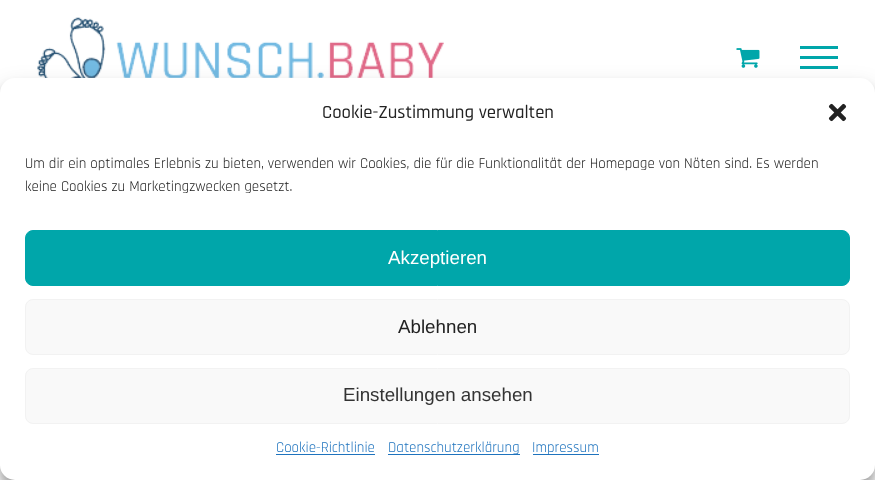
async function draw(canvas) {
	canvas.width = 875;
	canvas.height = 480;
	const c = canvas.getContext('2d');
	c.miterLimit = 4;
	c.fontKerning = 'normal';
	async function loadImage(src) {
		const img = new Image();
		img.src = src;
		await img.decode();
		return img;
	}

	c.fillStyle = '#fff';
	c.fillRect(0, 0, 875, 480);
	c.drawImage(await loadImage('img1.png'), 37, 17, 407, 61);
	c.drawImage(await loadImage('img2.png'), 736, 48, 24, 20);
	for (const [x, y, w, h, color] of [
		[800, 46, 38, 3, '#00a6aa'],
		[800, 56, 38, 3, '#00a6aa'],
		[800, 66, 38, 3, '#00a6aa'],
	]) {
		c.fillStyle = color;
		c.fillRect(x, y, w, h);
	}
	c.fillStyle = '#0000003b';
	c.filter = 'blur(4px)';
	c.beginPath();
	c.roundRect(0, 85, 875, 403, 15);
	c.fill();
	c.filter = 'none';
	c.fillStyle = '#00000030';
	c.filter = 'blur(12.5px)';
	c.beginPath();
	c.roundRect(0, 90, 875, 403, 15);
	c.fill();
	c.filter = 'none';
	c.fillStyle = '#fff';
	c.beginPath();
	c.roundRect(0, 78, 875, 402, 15);
	c.fill();
	c.font = '500 18.75px Rajdhani';
	c.fillStyle = '#222';
	c.fillText('Cookie-Zustimmung verwalten', 322, 118);
	c.drawImage(await loadImage('img3.png'), 828, 103, 19, 19);
	c.font = '15px Rajdhani';
	c.fillText('Um dir ein optimales Erlebnis zu bieten, verwenden wir Cookies, die für die Funktionalität der Homepage von Nöten sind. Es werden', 25, 168);
	c.fillText('keine Cookies zu Marketingzwecken gesetzt.', 25, 191);
	c.fillStyle = '#00a6aa';
	c.beginPath();
	c.roundRect(25.5, 230.5, 824, 55, 7.5);
	c.fill();
	c.strokeStyle = '#00a6aa';
	c.stroke();
	c.font = '18.75px Liberation Sans';
	c.fillStyle = '#fff';
	c.fillText('Akzeptieren', 388, 264);
	c.fillStyle = '#f9f9f9';
	c.beginPath();
	c.roundRect(25.5, 299.5, 824, 55, 7.5);
	c.fill();
	c.strokeStyle = '#f2f2f2';
	c.stroke();
	c.fillStyle = '#222';
	c.fillText('Ablehnen', 398, 333);
	c.fillStyle = '#f9f9f9';
	c.beginPath();
	c.roundRect(25.5, 368.5, 824, 55, 7.5);
	c.fill();
	c.stroke();
	c.fillStyle = '#333';
	c.fillText('Einstellungen ansehen', 343, 401);
	c.font = '15px Rajdhani';
	c.fillStyle = '#1e73be';
	c.fillText('Cookie-Richtlinie', 276, 452);
	c.fillRect(276, 454, 99, 1);
	c.fillRect(388, 454, 132, 1);
	c.fillText('Datenschutzerklärung', 388, 452);
	c.fillRect(533, 454, 66, 1);
	c.fillText('Impressum', 532, 452);
}

draw(document.querySelector('canvas'));
